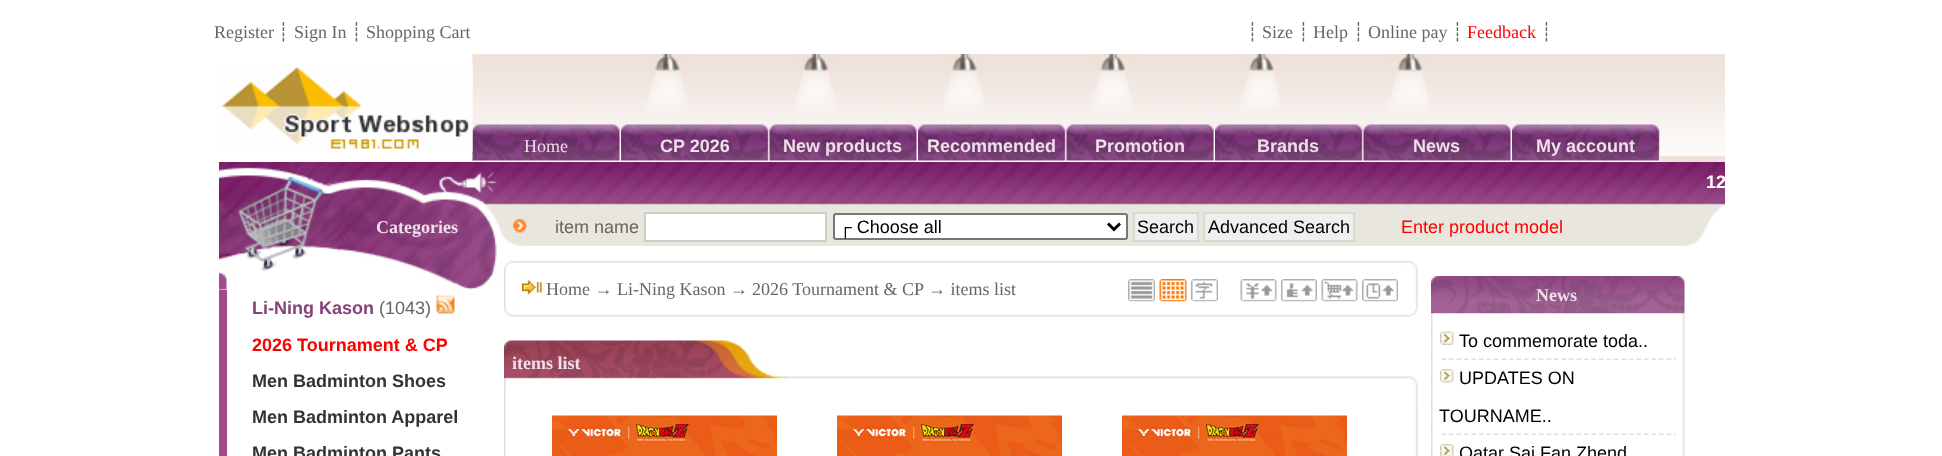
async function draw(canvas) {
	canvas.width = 1942;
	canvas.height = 456;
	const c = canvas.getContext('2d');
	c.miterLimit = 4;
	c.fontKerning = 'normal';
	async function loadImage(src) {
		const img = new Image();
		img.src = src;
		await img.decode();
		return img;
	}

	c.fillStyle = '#fff';
	c.fillRect(0, 0, 1942, 456);
	c.font = '18px Liberation Serif';
	c.fillStyle = '#666';
	c.fillText('Register', 214, 38);
	c.font = '18px DejaVu Sans';
	c.fillText('┊', 278, 38);
	c.font = '18px Liberation Serif';
	c.fillText('Sign In', 294, 38);
	c.font = '18px DejaVu Sans';
	c.fillText('┊', 351, 38);
	c.font = '18px Liberation Serif';
	c.fillText('Shopping Cart', 366, 38);
	c.font = '18px DejaVu Sans';
	c.fillText('┊', 1247, 38);
	c.font = '18px Liberation Serif';
	c.fillText('Size', 1262, 38);
	c.font = '18px DejaVu Sans';
	c.fillText('┊', 1298, 38);
	c.font = '18px Liberation Serif';
	c.fillText('Help', 1313, 38);
	c.font = '18px DejaVu Sans';
	c.fillText('┊', 1353, 38);
	c.font = '18px Liberation Serif';
	c.fillText('Online pay', 1368, 38);
	c.font = '18px DejaVu Sans';
	c.fillText('┊', 1452, 38);
	c.font = '18px Liberation Serif';
	c.fillStyle = '#f00';
	c.fillText('Feedback', 1467, 38);
	c.font = '18px DejaVu Sans';
	c.fillStyle = '#666';
	c.fillText('┊', 1541, 38);
	c.drawImage(await loadImage('img2.png'), 472, 54, 1253, 108);
	c.drawImage(await loadImage('img8.png'), 472, 124, 149, 38);
	c.drawImage(await loadImage('img1.png'), 221, 64, 252, 88);
	c.drawImage(await loadImage('img3.png'), 639, 54, 57, 59);
	c.drawImage(await loadImage('img4.png'), 788, 54, 56, 63);
	c.drawImage(await loadImage('img5.png'), 936, 54, 57, 63);
	c.drawImage(await loadImage('img4.png'), 1085, 54, 56, 63);
	c.drawImage(await loadImage('img6.png'), 1233, 54, 57, 57);
	c.drawImage(await loadImage('img7.png'), 1382, 54, 56, 59);
	c.font = '18px Liberation Serif';
	c.fillStyle = '#ede0ea';
	c.fillText('Home', 524, 152);
	c.drawImage(await loadImage('img9.png'), 621, 124, 149, 38);
	c.font = 'bold 18px Liberation Sans';
	c.fillText('CP 2026', 660, 152);
	c.drawImage(await loadImage('img10.png'), 769, 124, 149, 38);
	c.fillText('New products', 783, 152);
	c.drawImage(await loadImage('img11.png'), 918, 124, 149, 38);
	c.fillText('Recommended', 927, 152);
	c.drawImage(await loadImage('img12.png'), 1066, 124, 149, 38);
	c.fillText('Promotion', 1095, 152);
	c.drawImage(await loadImage('img13.png'), 1215, 124, 149, 38);
	c.fillText('Brands', 1257, 152);
	c.drawImage(await loadImage('img14.png'), 1363, 124, 149, 38);
	c.fillText('News', 1413, 152);
	c.drawImage(await loadImage('img15.png'), 1512, 124, 149, 38);
	c.fillText('My account', 1536, 152);
	c.drawImage(await loadImage('img16.png'), 219, 162, 285, 128);
	c.font = 'bold 18px Liberation Serif';
	c.fillText('Categories', 376, 233);
	c.fillStyle = '#a14c90';
	c.fillRect(219, 290, 8, 166);
	c.font = 'bold 18px Liberation Sans';
	c.fillStyle = '#874178';
	c.fillText('Li-Ning Kason', 252, 314);
	c.font = '18px Liberation Sans';
	c.fillStyle = '#666';
	c.fillText('(1043)', 379, 314);
	c.drawImage(await loadImage('img17.png'), 436, 295, 19, 19);
	c.font = 'bold 18px Liberation Sans';
	c.fillStyle = '#f00';
	c.fillText('2026 Tournament & CP', 252, 351);
	c.fillStyle = '#333';
	for (const [text, x, y] of [
		['Men Badminton Shoes', 252, 387],
		['Men Badminton Apparel', 252, 423],
		['Men Badminton Pants', 252, 459],
	]) {
		c.fillText(text, x, y);
	}
	c.drawImage(await loadImage('img18.png'), 504, 162, 1221, 84);
	c.fillStyle = '#fff';
	c.fillText('12', 1706, 188);
	c.drawImage(await loadImage('img19.png'), 513, 219, 14, 14);
	c.font = '18px Liberation Sans';
	c.fillStyle = '#666';
	c.fillText('item name', 555, 233);
	c.fillStyle = '#fff';
	c.beginPath();
	c.rect(645, 213, 181, 28);
	c.fill();
	c.strokeStyle = '#ccc';
	c.lineWidth = 2;
	c.stroke();
	c.beginPath();
	c.roundRect(834, 214, 293, 25, 2);
	c.fill();
	c.strokeStyle = '#767676';
	c.stroke();
	c.beginPath();
	c.moveTo(1108, 223.5);
	c.lineTo(1114, 229.5);
	c.lineTo(1120, 223.5);
	c.strokeStyle = '#000';
	c.lineWidth = 3;
	c.stroke();
	c.fillStyle = '#000';
	c.fillText('┌ Choose all', 839, 233);
	c.fillStyle = '#efefef';
	c.beginPath();
	c.rect(1134, 213, 64, 28);
	c.fill();
	c.strokeStyle = '#d8d8d8';
	c.lineWidth = 2;
	c.stroke();
	c.fillStyle = '#000';
	c.fillText('Search', 1137, 233);
	c.fillStyle = '#efefef';
	c.beginPath();
	c.rect(1204, 213, 150, 28);
	c.fill();
	c.stroke();
	c.fillStyle = '#000';
	c.fillText('Advanced Search', 1208, 233);
	c.fillStyle = '#f00';
	c.fillText('Enter product model', 1401, 233);
	c.drawImage(await loadImage('img20.png'), 504, 261, 914, 15);
	c.drawImage(await loadImage('img21.png'), 504, 276, 914, 26);
	c.drawImage(await loadImage('img22.png'), 522, 280, 20, 14);
	c.font = '18px Liberation Serif';
	c.fillStyle = '#666';
	for (const [text, x, y] of [
		['Home → Li-Ning Kason →', 546, 295],
		['2026 Tournament & CP', 752, 295],
		['→ items list', 928, 295],
	]) {
		c.fillText(text, x, y);
	}
	c.drawImage(await loadImage('img23.png'), 1128, 279, 27, 23);
	c.drawImage(await loadImage('img24.png'), 1159, 279, 28, 23);
	c.drawImage(await loadImage('img25.png'), 1191, 279, 27, 23);
	c.drawImage(await loadImage('img26.png'), 1240, 279, 37, 23);
	c.drawImage(await loadImage('img27.png'), 1281, 279, 36, 23);
	c.drawImage(await loadImage('img28.png'), 1321, 279, 37, 23);
	c.drawImage(await loadImage('img29.png'), 1362, 279, 36, 23);
	c.drawImage(await loadImage('img30.png'), 504, 301, 914, 16);
	c.drawImage(await loadImage('img31.png'), 504, 340, 914, 46);
	c.font = 'bold 18px Liberation Serif';
	c.fillStyle = '#ede0ea';
	c.fillText('items list', 512, 369);
	c.drawImage(await loadImage('img32.png'), 504, 385, 914, 16);
	c.drawImage(await loadImage('img33.png'), 504, 400, 914, 56);
	c.drawImage(await loadImage('img34.png'), 552, 415, 225, 41);
	c.drawImage(await loadImage('img35.png'), 837, 415, 225, 41);
	c.drawImage(await loadImage('img36.png'), 1122, 415, 225, 41);
	c.drawImage(await loadImage('img37.png'), 1431, 276, 254, 38);
	c.fillText('News', 1536, 301);
	c.drawImage(await loadImage('img38.png'), 1431, 313, 254, 143);
	c.drawImage(await loadImage('img39.png'), 1441, 358, 235, 2);
	c.drawImage(await loadImage('img40.png'), 1440, 331, 14, 14);
	c.font = '18px Liberation Sans';
	c.fillStyle = '#000';
	c.fillText('To commemorate toda..', 1459, 347);
	c.drawImage(await loadImage('img41.png'), 1441, 433, 235, 2);
	c.drawImage(await loadImage('img42.png'), 1440, 369, 14, 14);
	c.fillText('UPDATES ON', 1459, 384);
	c.fillText('TOURNAME..', 1439, 422);
	c.drawImage(await loadImage('img43.png'), 1440, 444, 14, 12);
	c.fillText('Qatar Sai Fan Zhend', 1459, 459);
}

draw(document.querySelector('canvas'));
